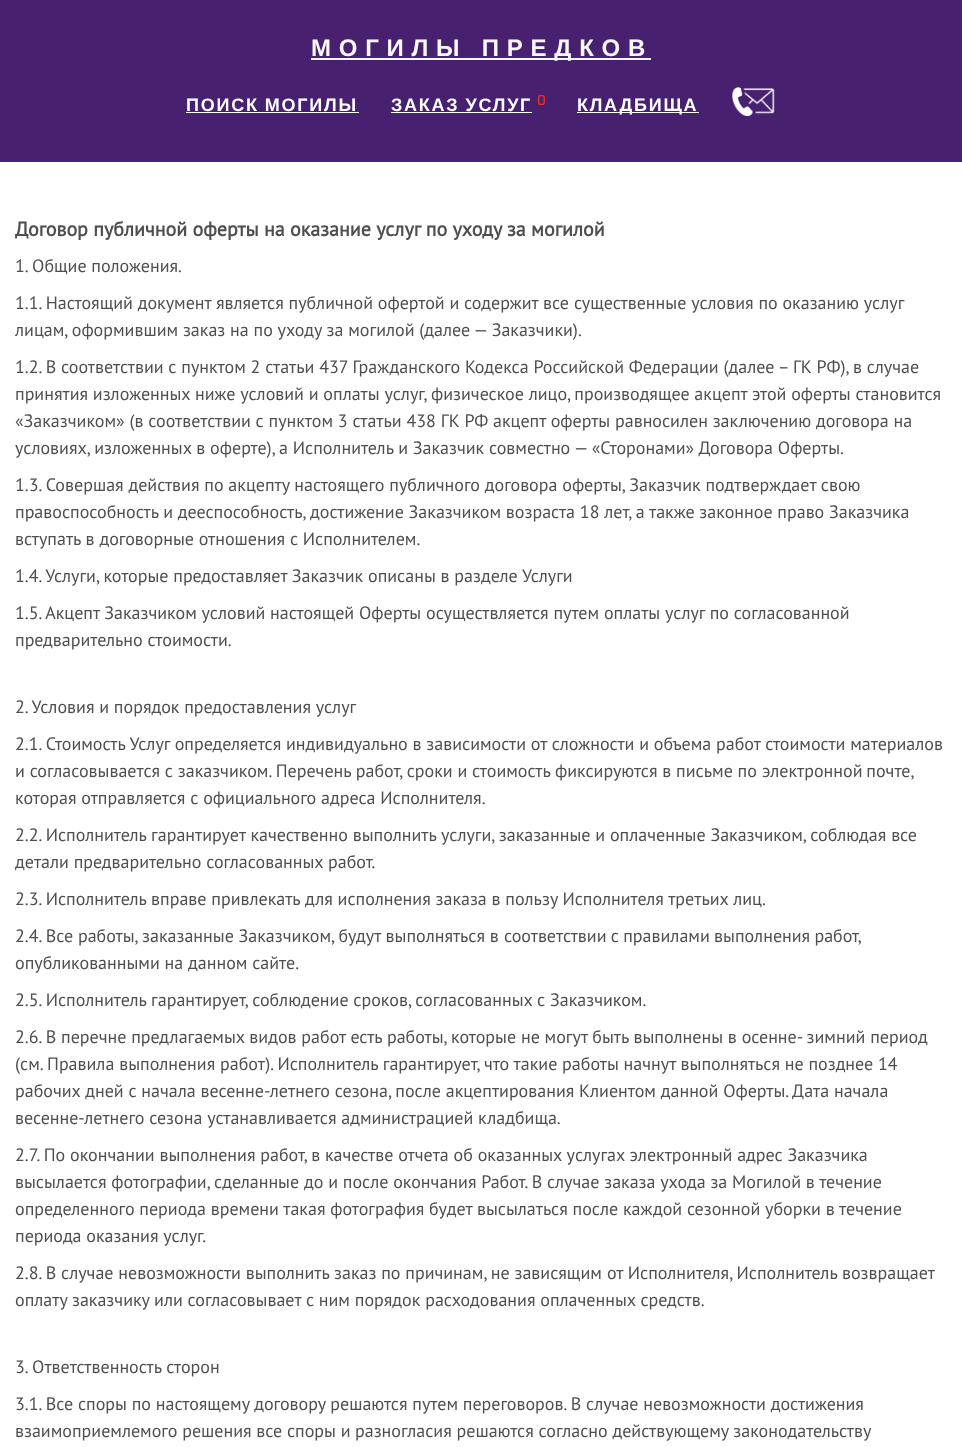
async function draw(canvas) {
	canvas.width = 962;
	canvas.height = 1447;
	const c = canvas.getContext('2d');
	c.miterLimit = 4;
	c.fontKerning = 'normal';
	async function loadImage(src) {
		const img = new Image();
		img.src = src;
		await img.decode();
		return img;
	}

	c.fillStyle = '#fff';
	c.fillRect(0, 0, 962, 1447);
	c.fillStyle = '#482070';
	c.fillRect(0, 0, 962, 162);
	c.fillStyle = '#f8f8f8';
	c.fillRect(311, 58, 340, 2);
	c.letterSpacing = '7.75px';
	c.font = 'bold 24px Liberation Sans';
	c.fillText('МОГИЛЫ ПРЕДКОВ', 311, 56);
	c.letterSpacing = '1.75px';
	c.wordSpacing = '-0.5px';
	c.font = 'bold 18px Liberation Sans';
	c.fillStyle = '#fff';
	c.fillText('ПОИСК МОГИЛЫ', 186, 111);
	c.fillRect(186, 112, 173, 1);
	c.fillText('ЗАКАЗ УСЛУГ', 391, 111);
	c.fillRect(391, 112, 141, 1);
	c.letterSpacing = '0px';
	c.wordSpacing = '0px';
	c.font = 'bold 13px Exo';
	c.fillStyle = '#ea3323';
	c.fillText('0', 537, 105);
	c.fillStyle = '#fff';
	c.fillRect(577, 112, 122, 1);
	c.letterSpacing = '1.75px';
	c.font = 'bold 18px Liberation Sans';
	c.fillText('КЛАДБИЩА', 577, 111);
	c.drawImage(await loadImage('img1.png'), 732, 87, 43, 30);
	c.letterSpacing = '0px';
	c.font = 'bold 20px PT Sans';
	c.fillStyle = '#4f4f4f';
	c.fillText('Договор публичной оферты на оказание услуг по уходу за могилой', 15, 236);
	c.font = '18px PT Sans';
	for (const [text, x, y] of [
		['1. Общие положения.', 15, 272],
		['1.1. Настоящий документ является публичной офертой и содержит все', 15, 309],
		['существенные условия по оказанию услуг', 574, 309],
		['лицам, оформившим заказ на по уходу за могилой (далее — Заказчики).', 15, 336],
		['1.2. В соответствии с пунктом 2 статьи 437 Гражданского Кодекса Российской Федерации (далее – ГК РФ), в случае', 15, 373],
		['принятия изложенных ниже условий и оплаты услуг, физическое лицо, производящее акцепт этой оферты становится', 15, 400],
		['«Заказчиком» (в соответствии с пунктом 3 статьи 438 ГК РФ акцепт оферты равносилен заключению договора на', 15, 427],
		['условиях, изложенных в оферте), а Исполнитель и Заказчик совместно — «Сторонами» Договора Оферты.', 15, 454],
		['1.3. Совершая действия по акцепту настоящего публичного договора оферты, Заказчик подтверждает свою', 15, 491],
		['правоспособность и дееспособность, достижение Заказчиком возраста 18 лет, а также законное право Заказчика', 15, 518],
		['вступать в договорные отношения с Исполнителем.', 15, 545],
		['1.4. Услуги, которые предоставляет Заказчик описаны в разделе Услуги', 15, 582],
		['1.5. Акцепт Заказчиком условий настоящей Оферты осуществляется путем оплаты услуг по согласованной', 15, 619],
		['предварительно стоимости.', 15, 646],
		['2. Условия и порядок предоставления услуг', 15, 713],
		['2.1. Стоимость Услуг определяется индивидуально в зависимости от сложности и объема работ стоимости материалов', 15, 750],
		['и согласовывается с заказчиком. Перечень работ, сроки и стоимость фиксируются в письме по', 15, 777],
	]) {
		c.fillText(text, x, y);
	}
	c.wordSpacing = '-1px';
	c.fillText('электронной почте,', 762, 777);
	c.wordSpacing = '0px';
	for (const [text, x, y] of [
		['которая отправляется с официального адреса Исполнителя.', 15, 804],
		['2.2. Исполнитель гарантирует качественно выполнить услуги, заказанные и оплаченные Заказчиком, соблюдая все', 15, 841],
		['детали предварительно согласованных работ.', 15, 868],
		['2.3. Исполнитель вправе привлекать для исполнения заказа в пользу Исполнителя третьих лиц.', 15, 905],
		['2.4. Все работы, заказанные Заказчиком, будут выполняться в', 15, 942],
	]) {
		c.fillText(text, x, y);
	}
	c.wordSpacing = '-0.5px';
	c.fillText('соответствии с правилами выполнения работ,', 504, 942);
	c.wordSpacing = '0px';
	for (const [text, x, y] of [
		['опубликованными на данном сайте.', 15, 969],
		['2.5. Исполнитель гарантирует, соблюдение сроков, согласованных с Заказчиком.', 15, 1006],
		['2.6. В перечне предлагаемых видов работ есть работы, которые не могут быть выполнены в осенне- зимний период', 15, 1043],
		['(см. Правила выполнения работ). Исполнитель гарантирует, что такие работы начнут выполняться не позднее 14', 15, 1070],
		['рабочих дней с начала весенне-летнего сезона, после акцептирования Клиентом данной Оферты. Дата начала', 15, 1097],
		['весенне-летнего сезона устанавливается администрацией кладбища.', 15, 1124],
		['2.7. По окончании выполнения работ, в качестве отчета об оказанных услугах электронный адрес Заказчика', 15, 1161],
		['высылается фотографии, сделанные до и после окончания Работ. В случае заказа ухода за Могилой в течение', 15, 1188],
		['определенного периода времени такая фотография будет высылаться после каждой сезонной уборки в течение', 15, 1215],
		['периода оказания услуг.', 15, 1242],
		['2.8. В случае невозможности выполнить заказ по причинам, не зависящим', 15, 1279],
		['от Исполнителя, Исполнитель возвращает', 607, 1279],
		['оплату заказчику или согласовывает с ним порядок расходования оплаченных средств.', 15, 1306],
		['3. Ответственность сторон', 15, 1373],
		['3.1. Все споры по настоящему договору решаются путем переговоров. В случае невозможности достижения', 15, 1410],
		['взаимоприемлемого решения все споры и', 15, 1437],
		['разногласия решаются согласно действующему законодательству', 355, 1437],
	]) {
		c.fillText(text, x, y);
	}
}

draw(document.querySelector('canvas'));
